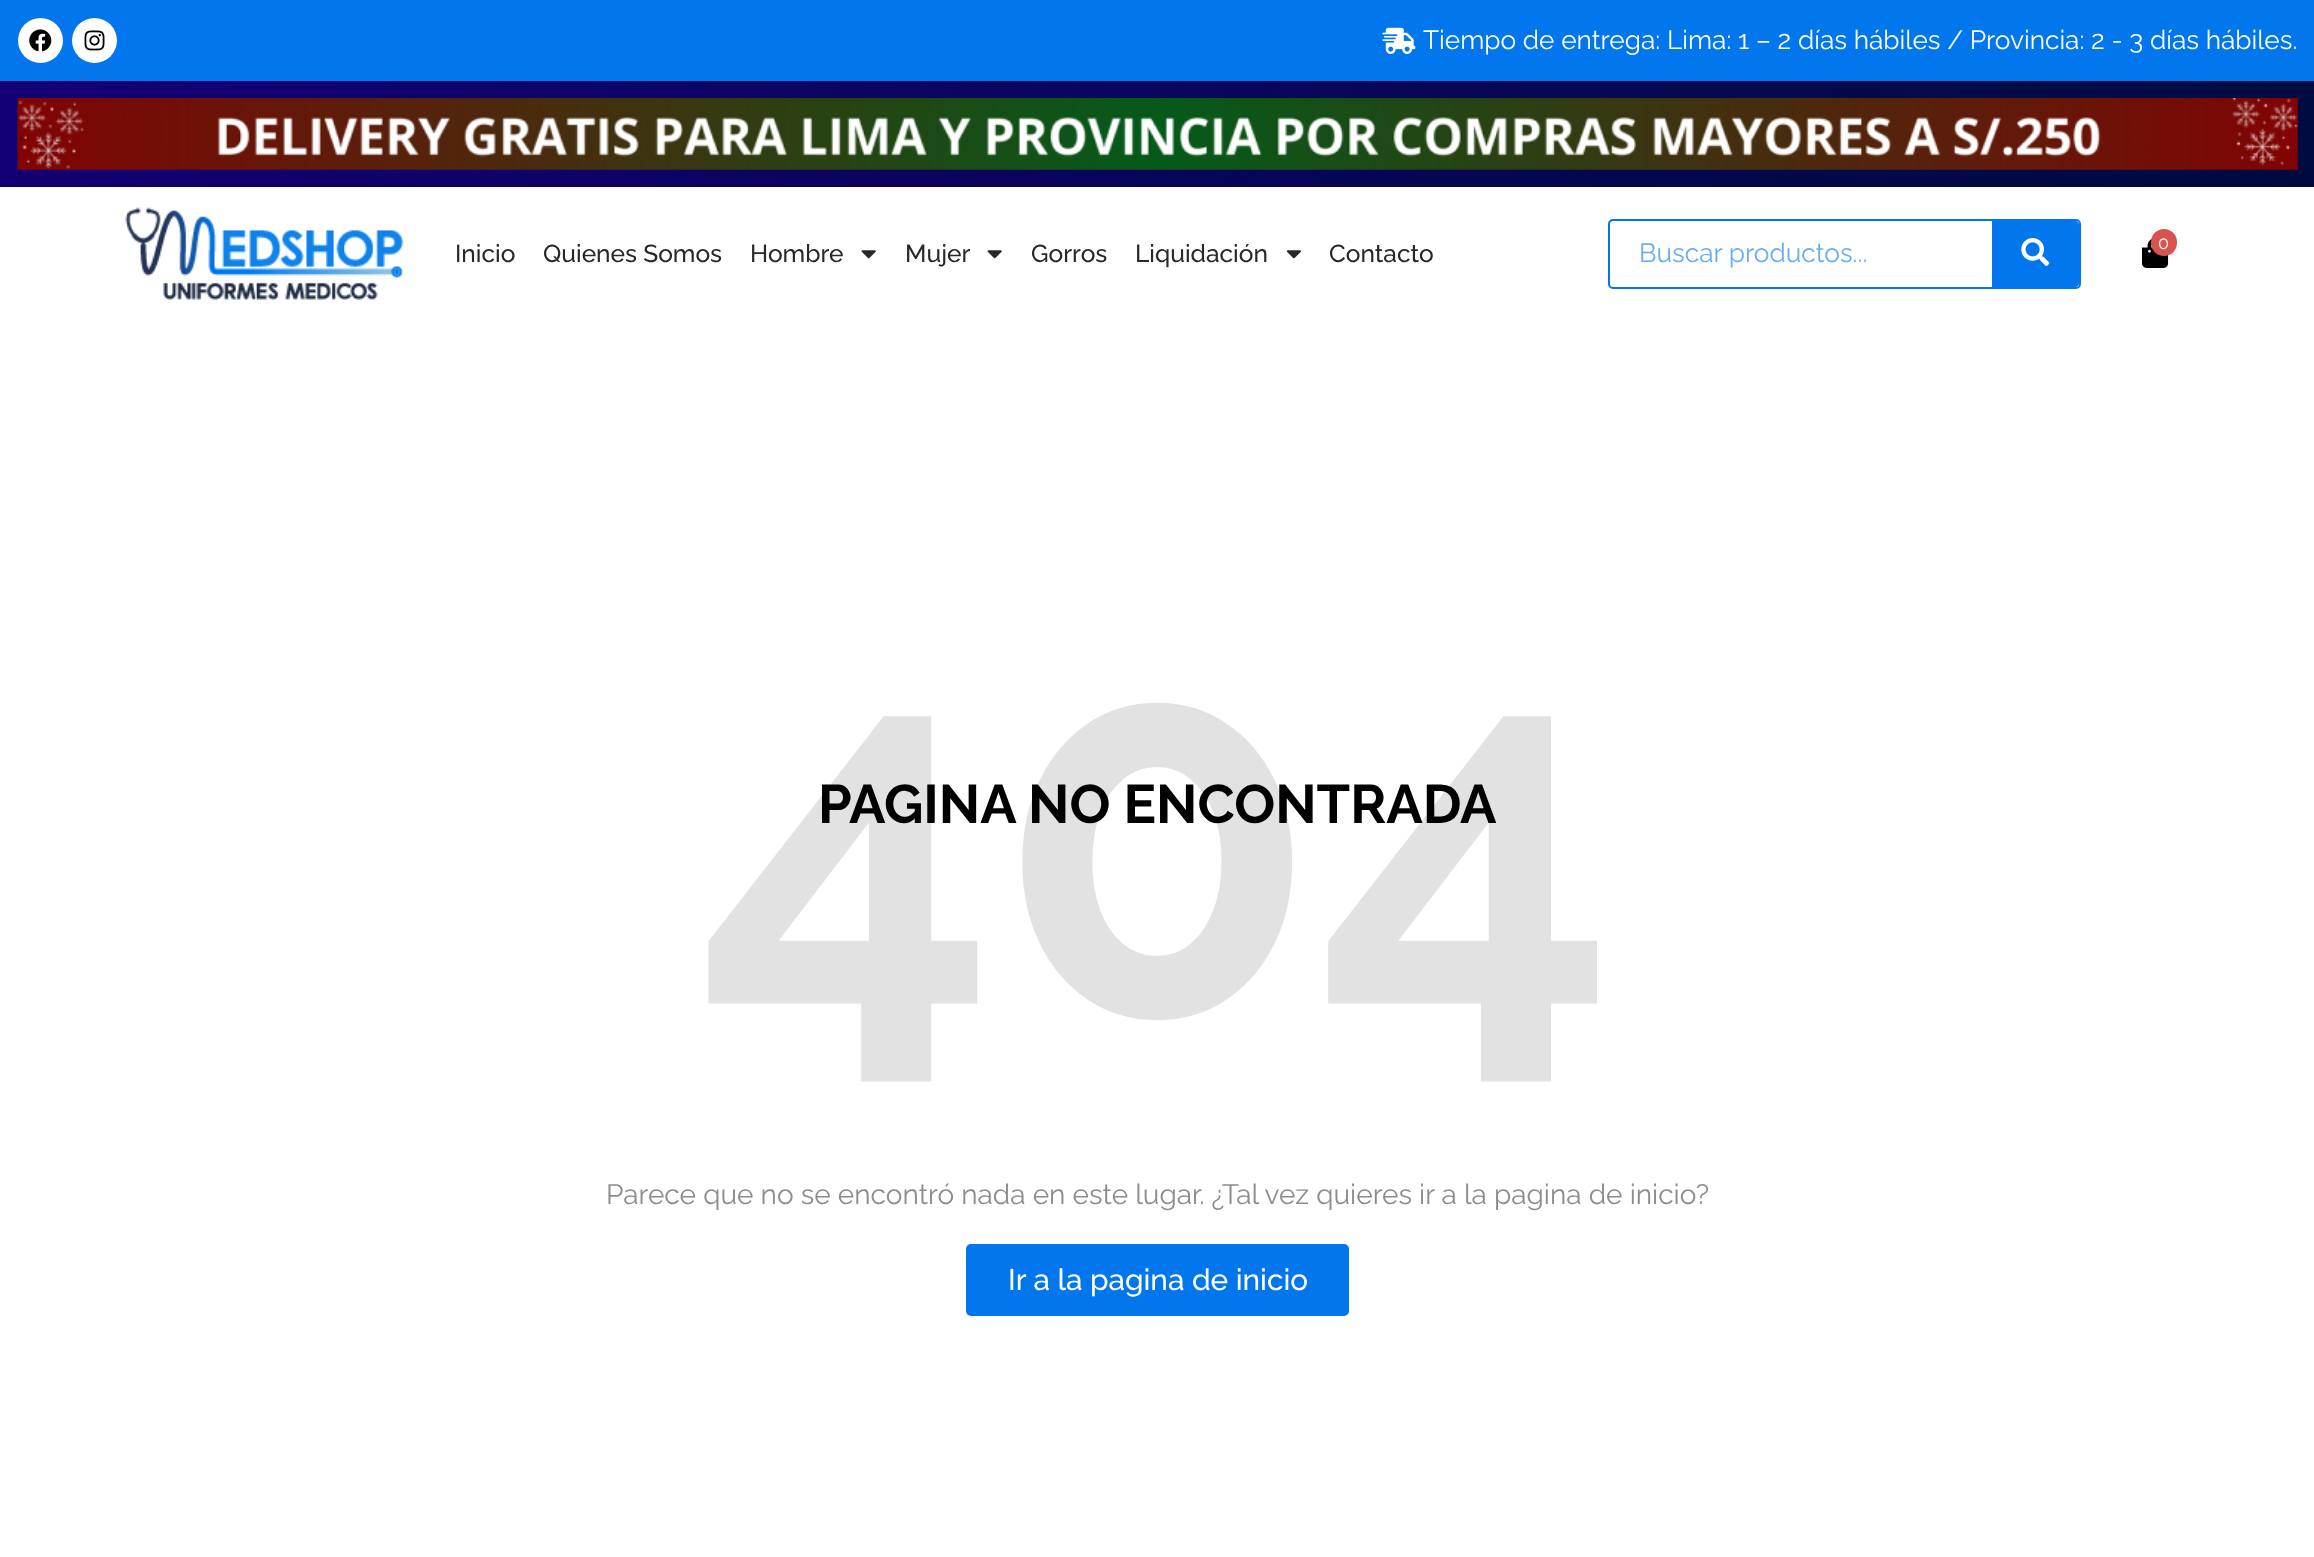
async function draw(canvas) {
	canvas.width = 2314;
	canvas.height = 1557;
	const c = canvas.getContext('2d');
	c.miterLimit = 4;
	c.fontKerning = 'normal';
	async function loadImage(src) {
		const img = new Image();
		img.src = src;
		await img.decode();
		return img;
	}
	let gradient;

	c.fillStyle = '#0276ec';
	c.fillRect(0, 0, 2314, 1557);
	c.fillStyle = '#fff';
	c.beginPath();
	c.arc(40.5, 40.5, 22.5, 0, 2 * Math.PI);
	c.fill();
	c.drawImage(await loadImage('img1.png'), 29, 29, 23, 23);
	c.beginPath();
	c.arc(94.5, 40.5, 22.5, 0, 2 * Math.PI);
	c.fill();
	c.drawImage(await loadImage('img2.png'), 84, 30, 21, 21);
	c.drawImage(await loadImage('img3.png'), 1382, 27, 34, 27);
	c.font = '26.25px Raleway';
	c.fillText('Tiempo de entrega: Lima: 1 – 2 días hábiles / Provincia: 2 - 3 días hábiles.', 1423, 49);
	gradient = c.createLinearGradient(0, 134, 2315, 134);
	gradient.addColorStop(0, '#130076');
	gradient.addColorStop(1, '#000b41');
	c.fillStyle = gradient;
	c.fillRect(0, 81, 2314, 106);
	c.drawImage(await loadImage('img4.png'), 17, 98, 2281, 72);
	c.fillStyle = '#00000033';
	c.filter = 'blur(9px)';
	c.beginPath();
	c.rect(0, 189, 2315, 133);
	c.fill();
	c.filter = 'none';
	c.fillStyle = '#fff';
	c.fillRect(0, 187, 2314, 1370);
	c.drawImage(await loadImage('img5.png'), 125, 207, 279, 93);
	c.font = '500 24.5px Raleway';
	c.fillStyle = '#282828';
	for (const [text, x, y] of [
		['Inicio', 455, 262],
		['Quienes Somos', 543, 262],
		['Hombre', 750, 262],
	]) {
		c.fillText(text, x, y);
	}
	c.drawImage(await loadImage('img6.png'), 861, 250, 15, 9);
	c.fillText('Mujer', 905, 262);
	c.drawImage(await loadImage('img6.png'), 987, 250, 15, 9);
	c.fillText('Gorros', 1031, 262);
	c.fillText('Liquidación', 1135, 262);
	c.drawImage(await loadImage('img7.png'), 1286, 250, 15, 9);
	c.fillText('Contacto', 1329, 262);
	c.beginPath();
	c.roundRect(1609, 220, 471, 68, 4);
	c.strokeStyle = '#0276ec';
	c.lineWidth = 2;
	c.stroke();
	c.font = '26.25px Raleway';
	c.fillStyle = '#67adf4';
	c.fillText('Buscar productos...', 1639, 262);
	c.fillStyle = '#0276ec';
	c.beginPath();
	c.roundRect(1992, 221, 87, 66, [0, 4, 4, 0]);
	c.fill();
	c.drawImage(await loadImage('img8.png'), 2021, 238, 29, 28);
	c.drawImage(await loadImage('img9.png'), 2142, 239, 27, 29);
	c.fillStyle = '#d9534f';
	c.beginPath();
	c.roundRect(2151, 229, 26, 27, 13);
	c.fill();
	c.font = '18px Raleway';
	c.fillStyle = '#fff';
	c.fillText('0', 2158, 249);
	c.font = 'bold 523px Raleway';
	c.fillStyle = '#e2e2e2';
	c.fillText('404', 698, 1015);
	c.font = 'bold 54.25px Raleway';
	c.fillStyle = '#000';
	c.fillText('PAGINA NO ENCONTRADA', 818, 823);
	c.font = '28px Raleway';
	c.fillStyle = '#8c8c8c';
	c.fillText('Parece que no se encontró nada en este lugar. ¿Tal vez quieres ir a la pagina de inicio?', 606, 1204);
	c.fillStyle = '#0276ec';
	c.beginPath();
	c.roundRect(966, 1244, 383, 72, 5);
	c.fill();
	c.font = '500 29.75px Raleway';
	c.fillStyle = '#fff';
	c.fillText('Ir a la pagina de inicio', 1008, 1290);
}

draw(document.querySelector('canvas'));
